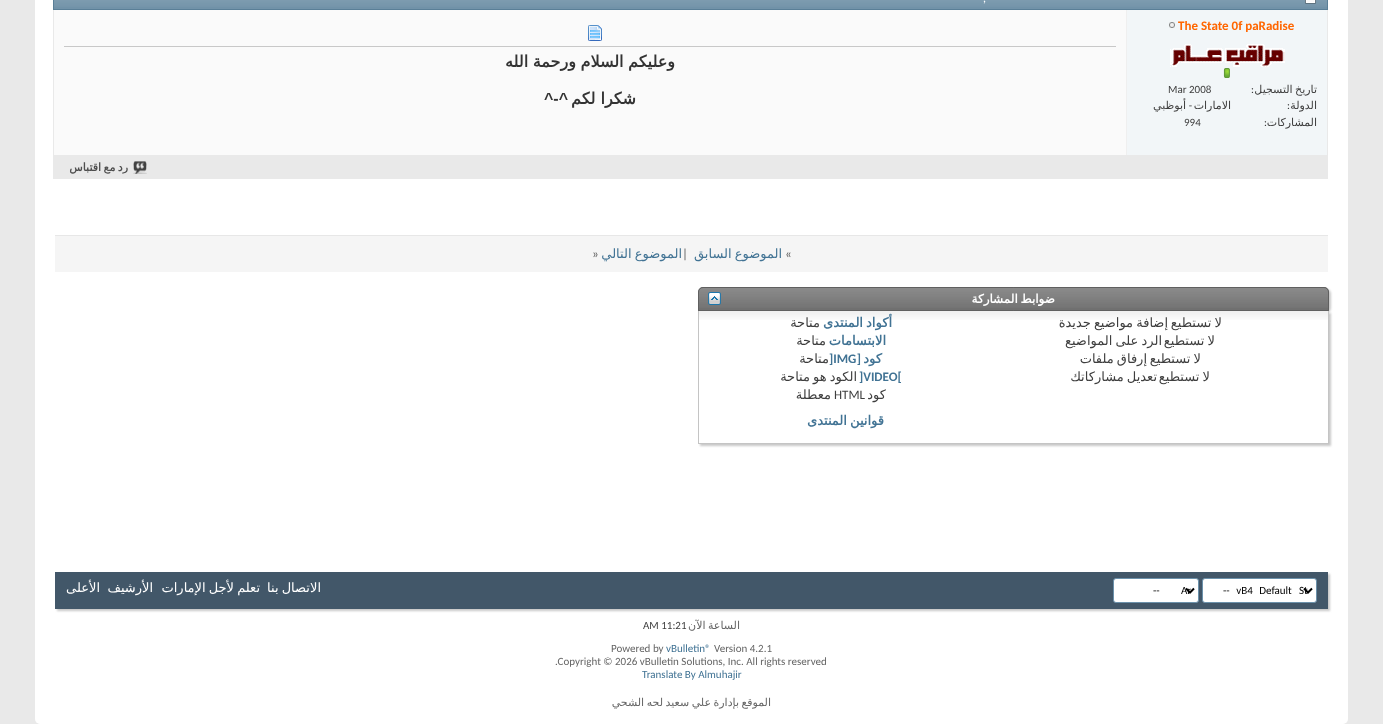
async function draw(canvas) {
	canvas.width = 1383;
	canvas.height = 724;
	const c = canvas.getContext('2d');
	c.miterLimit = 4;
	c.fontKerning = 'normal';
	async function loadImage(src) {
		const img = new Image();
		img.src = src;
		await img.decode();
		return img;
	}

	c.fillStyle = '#e9e9e9';
	c.fillRect(0, 0, 1383, 724);
	c.fillStyle = '#fff';
	c.beginPath();
	c.roundRect(35, -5, 1313, 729, 5);
	c.fill();
	c.strokeStyle = '#e9e9e9';
	c.strokeRect(53.5, -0.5, 1274, 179);
	c.fillStyle = '#7192a8';
	c.fillRect(54, 0, 1273, 9);
	c.drawImage(await loadImage('img1.png'), 54, 0, 1273, 7);
	c.strokeStyle = '#5a7f97';
	c.strokeRect(53.5, -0.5, 1274, 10);
	c.drawImage(await loadImage('img2.png'), 1305, 0, 11, 4);
	c.font = '12px Carlito';
	c.fillStyle = '#fff';
	c.fillText(',', 983, 2);
	c.fillStyle = '#f2f6f8';
	c.fillRect(1127, 10, 200, 145);
	c.font = 'bold 13px Carlito';
	c.fillStyle = '#f60';
	c.fillText('The State 0f paRadise', 1178, 30);
	c.drawImage(await loadImage('img3.png'), 1169, 22, 6, 6);
	c.drawImage(await loadImage('img4.png'), 1170, 44, 115, 23);
	c.drawImage(await loadImage('img5.png'), 1223, 68, 7, 10);
	c.wordSpacing = '-1px';
	c.direction = 'rtl';
	c.font = '11px DejaVu Sans';
	c.fillStyle = '#3e3e3e';
	c.fillText('تاريخ التسجيل', 1317, 93);
	c.wordSpacing = '0px';
	c.direction = 'ltr';
	c.font = '11px Carlito';
	c.fillText(':', 1251, 93);
	c.fillText('Mar 2008', 1168, 93);
	c.direction = 'rtl';
	c.font = '11px DejaVu Sans';
	c.fillText('الدولة', 1317, 109);
	c.direction = 'ltr';
	c.font = '11px Carlito';
	c.fillText(':', 1287, 109);
	c.direction = 'rtl';
	c.font = '11px DejaVu Sans';
	c.fillText('الامارات', 1231, 109);
	c.font = '11px Carlito';
	c.fillText('-', 1192, 109);
	c.font = '11px DejaVu Sans';
	c.fillText('أبوظبي', 1186, 109);
	c.fillText('المشاركات', 1317, 126);
	c.direction = 'ltr';
	c.font = '11px Carlito';
	c.fillText(':', 1264, 126);
	c.fillText('994', 1184, 126);
	for (const [x, y, w, h, color] of [
		[54, 10, 1072, 145, '#fafafa'],
		[1126, 10, 1, 145, '#efefef'],
		[64, 46, 1052, 1, '#c8c8c8'],
	]) {
		c.fillStyle = color;
		c.fillRect(x, y, w, h);
	}
	c.drawImage(await loadImage('img6.png'), 588, 25, 14, 16);
	c.wordSpacing = '-0.5px';
	c.direction = 'rtl';
	c.font = 'bold 16px DejaVu Sans';
	c.fillStyle = '#333';
	c.fillText('وعليكم السلام ورحمة الله', 675, 67);
	c.wordSpacing = '0px';
	c.fillText('شكرا لكم', 636, 104);
	c.font = 'bold 16px Liberation Sans';
	c.fillText('^-^', 568, 104);
	c.fillStyle = '#e9e9e9';
	c.fillRect(54, 155, 1273, 23);
	c.drawImage(await loadImage('img7.png'), 133, 161, 14, 13);
	c.wordSpacing = '-1px';
	c.font = 'bold 11px DejaVu Sans';
	c.fillStyle = '#4e4e4e';
	c.fillText('رد مع اقتباس', 128, 171);
	c.fillStyle = '#f5f5f5';
	c.fillRect(55, 236, 1273, 36);
	c.fillStyle = '#e7e7e7';
	c.fillRect(55, 235, 1273, 1);
	c.wordSpacing = '0px';
	c.direction = 'ltr';
	c.font = '13px Carlito';
	c.fillStyle = '#5d5d5d';
	c.fillText('«', 785, 258);
	c.wordSpacing = '-1px';
	c.direction = 'rtl';
	c.font = '13px DejaVu Sans';
	c.fillStyle = '#417394';
	c.fillText('الموضوع السابق', 782, 258);
	c.wordSpacing = '0px';
	c.direction = 'ltr';
	c.font = '13px Carlito';
	c.fillStyle = '#5d5d5d';
	c.fillText('|', 682, 258);
	c.wordSpacing = '-1px';
	c.direction = 'rtl';
	c.font = '13px DejaVu Sans';
	c.fillStyle = '#417394';
	c.fillText('الموضوع التالي', 682, 258);
	c.wordSpacing = '0px';
	c.direction = 'ltr';
	c.font = '13px Carlito';
	c.fillStyle = '#5d5d5d';
	c.fillText('»', 592, 258);
	c.fillStyle = '#c8c8c8';
	c.filter = 'blur(1px)';
	c.beginPath();
	c.roundRect(700, 289, 631, 24, 5);
	c.fill();
	c.filter = 'none';
	c.fillStyle = '#707070';
	c.beginPath();
	c.roundRect(698, 287, 631, 24, [5, 5, 0, 0]);
	c.fill();
	c.drawImage(await loadImage('img8.png'), 698, 288, 631, 20);
	c.beginPath();
	c.roundRect(698.5, 287.5, 630, 23, [4.5, 4.5, 0, 0]);
	c.strokeStyle = '#606060';
	c.stroke();
	c.wordSpacing = '-1px';
	c.direction = 'rtl';
	c.font = 'bold 12px DejaVu Sans';
	c.fillStyle = '#fff';
	c.fillText('ضوابط المشاركة', 1055, 303);
	c.drawImage(await loadImage('img9.png'), 708, 292, 13, 13);
	c.fillStyle = '#c8c8c8';
	c.filter = 'blur(1px)';
	c.beginPath();
	c.rect(700, 313, 631, 133);
	c.fill();
	c.filter = 'none';
	c.fillStyle = '#fff';
	c.fillRect(699, 311, 629, 132);
	c.drawImage(await loadImage('img10.png'), 699, 311, 629, 9);
	for (const [x, y, w, h, color] of [
		[1328, 311, 1, 133, '#c4c4c4'],
		[698, 443, 631, 1, '#c4c4c4'],
		[698, 311, 1, 133, '#c4c4c4'],
	]) {
		c.fillStyle = color;
		c.fillRect(x, y, w, h);
	}
	c.font = '13px DejaVu Sans';
	c.fillStyle = '#3e3e3e';
	for (const [text, x, y] of [
		['لا تستطيع', 1222, 327],
		['إضافة مواضيع جديدة', 1168, 327],
		['لا تستطيع', 1215, 345],
		['الرد على المواضيع', 1162, 345],
		['لا تستطيع', 1201, 363],
		['إرفاق ملفات', 1147, 363],
		['لا تستطيع', 1210, 381],
		['تعديل مشاركاتك', 1157, 381],
	]) {
		c.fillText(text, x, y);
	}
	c.font = 'bold 13px DejaVu Sans';
	c.fillStyle = '#417394';
	c.fillText('أكواد المنتدى', 892, 327);
	c.wordSpacing = '0px';
	c.font = '13px DejaVu Sans';
	c.fillStyle = '#3e3e3e';
	c.fillText('متاحة', 820, 327);
	c.font = 'bold 13px DejaVu Sans';
	c.fillStyle = '#417394';
	c.fillText('الابتسامات', 886, 345);
	c.font = '13px DejaVu Sans';
	c.fillStyle = '#3e3e3e';
	c.fillText('متاحة', 826, 345);
	c.font = 'bold 13px DejaVu Sans';
	c.fillStyle = '#417394';
	c.fillText('كود', 882, 363);
	c.font = 'bold 13px Carlito';
	c.fillText('[', 861, 363);
	c.direction = 'ltr';
	c.fillText(']IMG', 829, 363);
	c.direction = 'rtl';
	c.font = '13px DejaVu Sans';
	c.fillStyle = '#3e3e3e';
	c.fillText('متاحة', 829, 363);
	c.direction = 'ltr';
	c.font = 'bold 13px Carlito';
	c.fillStyle = '#417394';
	c.fillText(']VIDEO[', 859, 381);
	c.wordSpacing = '-1px';
	c.direction = 'rtl';
	c.font = '13px DejaVu Sans';
	c.fillStyle = '#3e3e3e';
	c.fillText('الكود هو', 857, 381);
	c.wordSpacing = '0px';
	c.fillText('متاحة', 810, 381);
	c.fillText('كود', 886, 399);
	c.direction = 'ltr';
	c.font = '13px Carlito';
	c.fillText('HTML', 834, 399);
	c.direction = 'rtl';
	c.font = '13px DejaVu Sans';
	c.fillText('معطلة', 831, 399);
	c.wordSpacing = '-1px';
	c.font = 'bold 13px DejaVu Sans';
	c.fillStyle = '#417394';
	c.fillText('قوانين المنتدى', 884, 425);
	c.fillStyle = '#c8c8c8';
	c.filter = 'blur(1px)';
	c.beginPath();
	c.rect(57, 574, 1273, 37);
	c.fill();
	c.filter = 'none';
	c.fillStyle = '#425769';
	c.fillRect(55, 572, 1273, 37);
	c.fillStyle = '#fff';
	c.beginPath();
	c.roundRect(1202.5, 578.5, 114, 24, 2.5);
	c.fill();
	c.strokeStyle = '#6b91ab';
	c.stroke();
	c.beginPath();
	c.moveTo(1304, 588.5);
	c.lineTo(1308, 592.5);
	c.lineTo(1312, 588.5);
	c.strokeStyle = '#000';
	c.lineWidth = 2;
	c.stroke();
	c.wordSpacing = '0px';
	c.direction = 'ltr';
	c.font = '11px Carlito';
	c.fillStyle = '#000';
	c.fillText('St', 1299, 594);
	c.wordSpacing = '4px';
	c.fillText('-- vB4 Default', 1223, 594);
	c.fillStyle = '#fff';
	c.beginPath();
	c.roundRect(1113.5, 578.5, 85, 24, 2.5);
	c.fill();
	c.strokeStyle = '#6b91ab';
	c.lineWidth = 1;
	c.stroke();
	c.beginPath();
	c.moveTo(1186, 588.5);
	c.lineTo(1190, 592.5);
	c.lineTo(1194, 588.5);
	c.strokeStyle = '#000';
	c.lineWidth = 2;
	c.stroke();
	c.wordSpacing = '0px';
	c.fillStyle = '#000';
	c.fillText('Ar', 1181, 594);
	c.fillText('--', 1153, 594);
	c.wordSpacing = '-1px';
	c.direction = 'rtl';
	c.font = '13px DejaVu Sans';
	c.fillStyle = '#fff';
	c.fillText('الاتصال بنا', 321, 592);
	c.fillText('تعلم لأجل الإمارات', 260, 592);
	c.wordSpacing = '0px';
	c.fillText('الأرشيف', 153, 592);
	c.fillText('الأعلى', 100, 592);
	c.wordSpacing = '-1px';
	c.font = '11px DejaVu Sans';
	c.fillStyle = '#666';
	c.fillText('الساعة الآن', 740, 629);
	c.wordSpacing = '0px';
	c.direction = 'ltr';
	c.font = '11px Carlito';
	c.fillStyle = '#3e3e3e';
	c.fillText('AM 11:21', 643, 629);
	c.fillStyle = '#666';
	c.fillText('Version 4.2.1', 714, 652);
	c.fillStyle = '#417394';
	c.fillText('vBulletin®', 666, 652);
	c.fillStyle = '#666';
	c.fillText('Powered by', 611, 652);
	c.fillText('.Copyright © 2026 vBulletin Solutions, Inc. All rights reserved', 555, 665);
	c.fillStyle = '#417394';
	c.fillText('Translate By Almuhajir', 642, 678);
	c.wordSpacing = '-1px';
	c.direction = 'rtl';
	c.font = '11px DejaVu Sans';
	c.fillStyle = '#666';
	c.fillText('الموقع بإدارة علي سعيد لحه الشحي', 771, 706);
}

draw(document.querySelector('canvas'));
